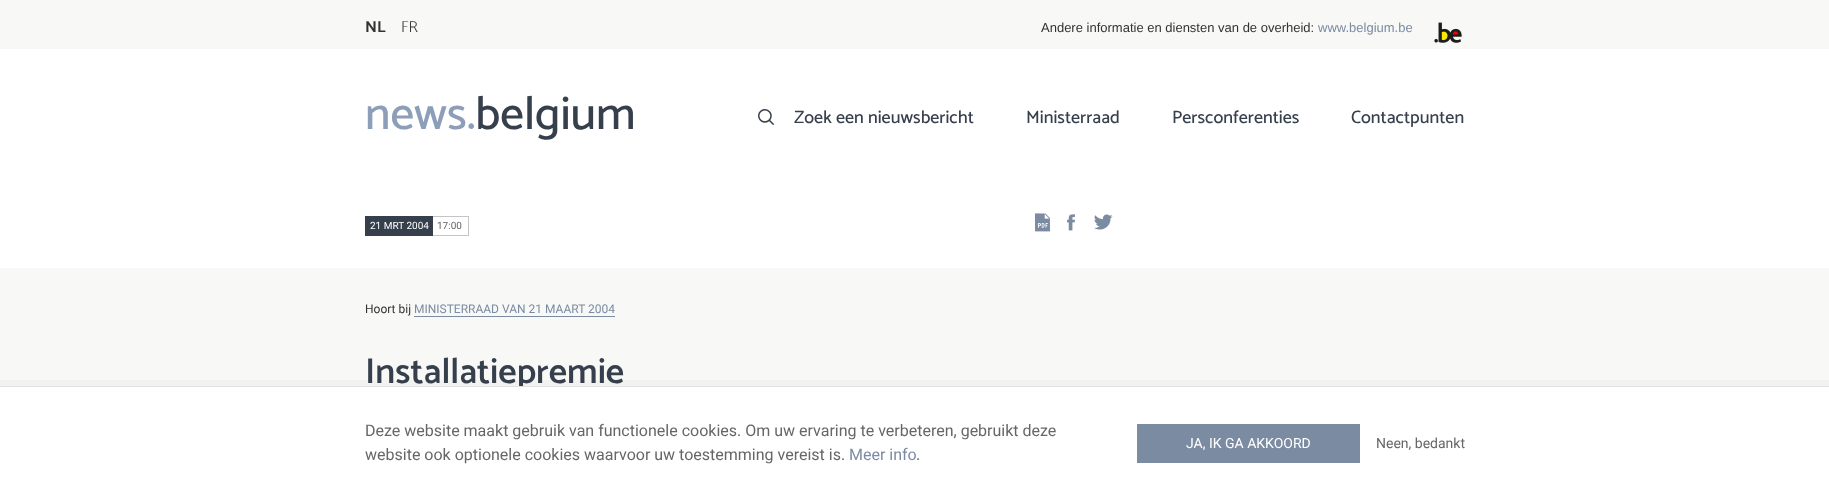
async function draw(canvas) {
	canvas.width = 1829;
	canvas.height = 499;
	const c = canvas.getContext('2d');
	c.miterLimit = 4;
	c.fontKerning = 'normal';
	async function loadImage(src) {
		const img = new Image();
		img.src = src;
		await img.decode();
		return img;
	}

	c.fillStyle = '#f8f8f7';
	c.fillRect(0, 0, 1829, 499);
	c.font = 'bold 16px Catamaran';
	c.fillStyle = '#333';
	c.fillText('NL', 365, 32);
	c.font = '300 16px Catamaran';
	c.fillText('FR', 401, 32);
	c.font = '13px Liberation Sans';
	c.fillText('Andere informatie en diensten van de overheid:', 1041, 32);
	c.fillStyle = '#7b8ba2';
	c.fillText('www.belgium.be', 1318, 32);
	c.drawImage(await loadImage('img1.png'), 1434, 22, 28, 21);
	c.fillStyle = '#fff';
	c.fillRect(0, 49, 1829, 219);
	c.font = '500 47px Catamaran';
	c.fillStyle = '#8c9eb8';
	c.fillText('news.', 365, 129);
	c.fillStyle = '#363f4c';
	c.fillText('belgium', 475, 129);
	c.drawImage(await loadImage('img2.png'), 758, 109, 16, 16);
	c.font = '500 18px Catamaran';
	for (const [text, x, y] of [
		['Zoek een nieuwsbericht', 794, 123],
		['Ministerraad', 1026, 123],
		['Persconferenties', 1172, 123],
		['Contactpunten', 1351, 123],
	]) {
		c.fillText(text, x, y);
	}
	c.fillRect(365, 216, 68, 20);
	c.font = '10px Roboto';
	c.fillStyle = '#fff';
	c.fillText('21 MRT 2004', 370, 229);
	for (const [x, y, w, h, color] of [
		[433, 216, 36, 1, '#c2c5c9'],
		[468, 216, 1, 20, '#c2c5c9'],
		[433, 235, 36, 1, '#c2c5c9'],
	]) {
		c.fillStyle = color;
		c.fillRect(x, y, w, h);
	}
	c.fillStyle = '#666';
	c.fillText('17:00', 437, 229);
	c.drawImage(await loadImage('img3.png'), 1035, 213, 16, 19);
	c.drawImage(await loadImage('img4.png'), 1067, 214, 8, 17);
	c.drawImage(await loadImage('img5.png'), 1094, 214, 19, 16);
	c.font = '12px Roboto';
	c.fillStyle = '#333';
	c.fillText('Hoort bij', 365, 313);
	c.fillStyle = '#7b8ba2';
	c.fillText('MINISTERRAAD VAN 21 MAART 2004', 414, 313);
	c.fillRect(414, 316, 201, 1);
	c.font = '600 36px Catamaran';
	c.fillStyle = '#363f4c';
	c.fillText('Installatiepremie', 365, 383);
	c.fillStyle = '#33333308';
	c.beginPath();
	c.moveTo(-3, 380);
	c.lineTo(-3, 499);
	c.lineTo(0, 499);
	c.lineTo(0, 386);
	c.lineTo(1829, 386);
	c.lineTo(1829, 499);
	c.lineTo(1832, 499);
	c.lineTo(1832, 380);
	c.closePath();
	c.fill();
	c.fillStyle = '#fff';
	c.fillRect(0, 387, 1829, 112);
	c.fillStyle = '#e1e1e1';
	c.fillRect(0, 386, 1829, 1);
	c.font = '16px Roboto';
	c.fillStyle = '#666';
	c.fillText('Deze website maakt gebruik van functionele cookies. Om uw ervaring te verbeteren, gebruikt deze', 365, 436);
	c.fillText('website ook optionele cookies waarvoor uw toestemming vereist is.', 365, 460);
	c.fillStyle = '#7b8ba2';
	c.fillText('Meer info', 849, 460);
	c.fillStyle = '#666';
	c.fillText('.', 916, 460);
	c.fillStyle = '#7b8ba2';
	c.fillRect(1137, 424, 223, 39);
	c.font = '14px Roboto';
	c.fillStyle = '#fff';
	c.fillText('JA, IK GA AKKOORD', 1186, 448);
	c.fillStyle = '#666';
	c.fillText('Neen, bedankt', 1376, 448);
}

draw(document.querySelector('canvas'));
